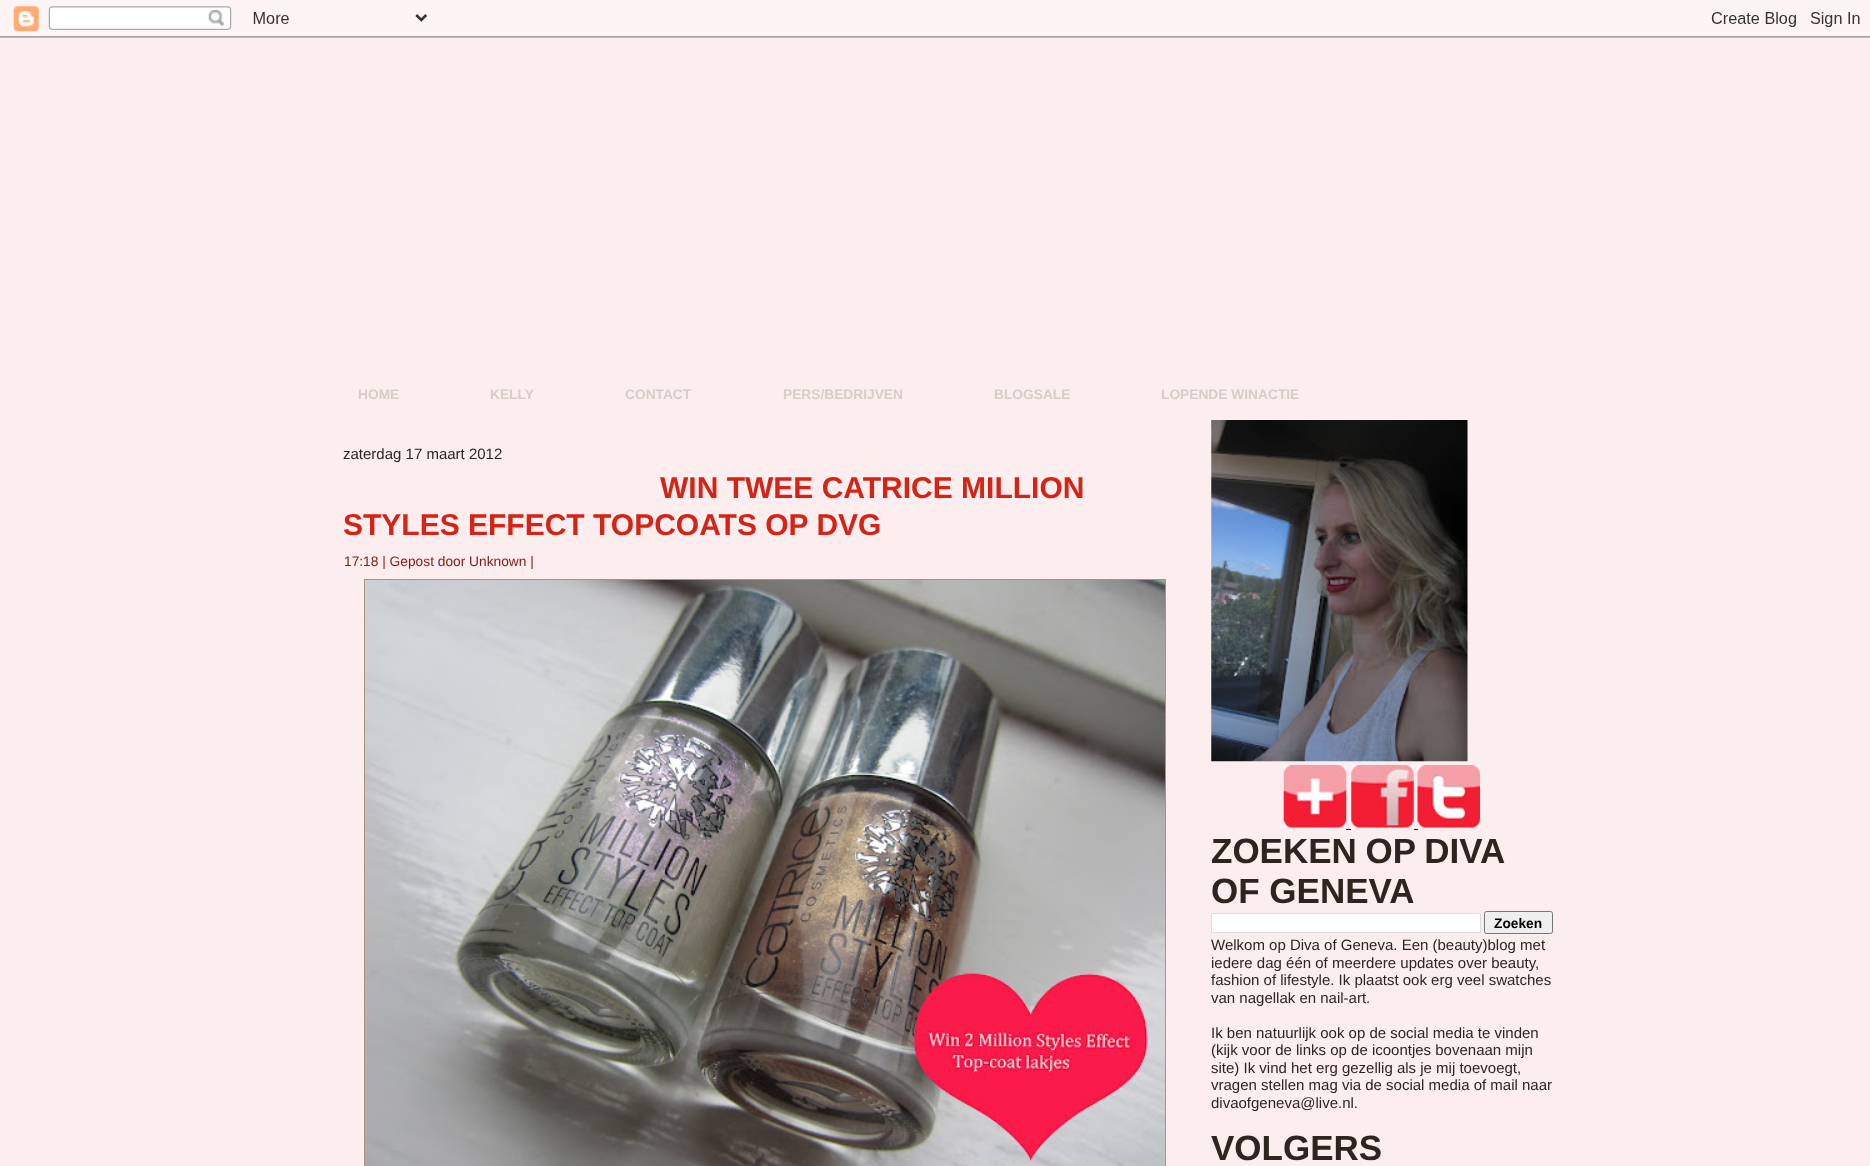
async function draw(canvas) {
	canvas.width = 1870;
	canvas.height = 1166;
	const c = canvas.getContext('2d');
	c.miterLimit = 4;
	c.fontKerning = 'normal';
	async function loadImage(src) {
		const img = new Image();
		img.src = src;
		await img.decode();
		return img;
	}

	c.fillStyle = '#fcedef';
	c.fillRect(0, 0, 1870, 1166);
	c.drawImage(await loadImage('img1.png'), 0, 0, 1870, 38);
	c.font = 'bold 13.75px Liberation Sans';
	c.fillStyle = '#d8cdc5';
	for (const [text, x, y] of [
		['HOME', 358, 399],
		['KELLY', 490, 399],
		['CONTACT', 625, 399],
		['PERS/BEDRIJVEN', 783, 399],
		['BLOGSALE', 994, 399],
		['LOPENDE WINACTIE', 1161, 399],
	]) {
		c.fillText(text, x, y);
	}
	c.font = '15px Liberation Sans';
	c.fillStyle = '#2e251e';
	c.fillText('zaterdag 17 maart 2012', 343, 459);
	c.font = 'bold 30px Liberation Sans';
	c.fillStyle = '#d42417';
	c.fillText('WIN TWEE CATRICE MILLION', 660, 498);
	c.fillText('STYLES EFFECT TOPCOATS OP DVG', 343, 535);
	c.font = '13.75px Liberation Sans';
	c.fillStyle = '#8a170f';
	c.fillText('17:18 | Gepost door Unknown |', 344, 566);
	c.strokeStyle = '#aa917e';
	c.strokeRect(364.5, 579.5, 801, 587);
	c.drawImage(await loadImage('img2.png'), 365, 580, 800, 586);
	c.drawImage(await loadImage('img3.png'), 1211, 420, 257, 342);
	c.drawImage(await loadImage('img4.png'), 1283, 765, 64, 63);
	c.drawImage(await loadImage('img5.png'), 1351, 765, 63, 63);
	c.drawImage(await loadImage('img6.png'), 1417, 765, 63, 63);
	c.fillStyle = '#00e';
	c.fillRect(1346, 829, 5, 1);
	c.fillRect(1414, 829, 4, 1);
	c.wordSpacing = '-1px';
	c.font = 'bold 35px Liberation Sans';
	c.fillStyle = '#2e251e';
	c.fillText('ZOEKEN OP DIVA', 1211, 863);
	c.wordSpacing = '0px';
	c.fillText('OF GENEVA', 1211, 903);
	c.fillStyle = '#fff';
	c.beginPath();
	c.rect(1211.5, 913.5, 269, 19);
	c.fill();
	c.strokeStyle = '#ddd';
	c.stroke();
	c.fillStyle = '#efefef';
	c.beginPath();
	c.roundRect(1484.5, 911.5, 68, 22, 2);
	c.fill();
	c.strokeStyle = '#767676';
	c.stroke();
	c.font = 'bold 13.75px Liberation Sans';
	c.fillStyle = '#000';
	c.fillText('Zoeken', 1494, 928);
	c.font = '15px Liberation Sans';
	c.fillStyle = '#2e251e';
	for (const [text, x, y] of [
		['Welkom op Diva of Geneva. Een (beauty)blog met', 1211, 950],
		['iedere dag één of meerdere updates over beauty,', 1211, 968],
		['fashion of lifestyle. Ik plaatst ook erg veel swatches', 1211, 985],
		['van nagellak en nail-art.', 1211, 1003],
		['Ik ben natuurlijk ook op de social media te vinden', 1211, 1038],
		['(kijk voor de links op de icoontjes bovenaan mijn', 1211, 1055],
		['site) Ik vind het erg gezellig als je mij toevoegt,', 1211, 1073],
		['vragen stellen mag via de social media of mail naar', 1211, 1090],
		['divaofgeneva@live.nl.', 1211, 1108],
	]) {
		c.fillText(text, x, y);
	}
	c.font = 'bold 35px Liberation Sans';
	c.fillText('VOLGERS', 1211, 1160);
}

draw(document.querySelector('canvas'));
